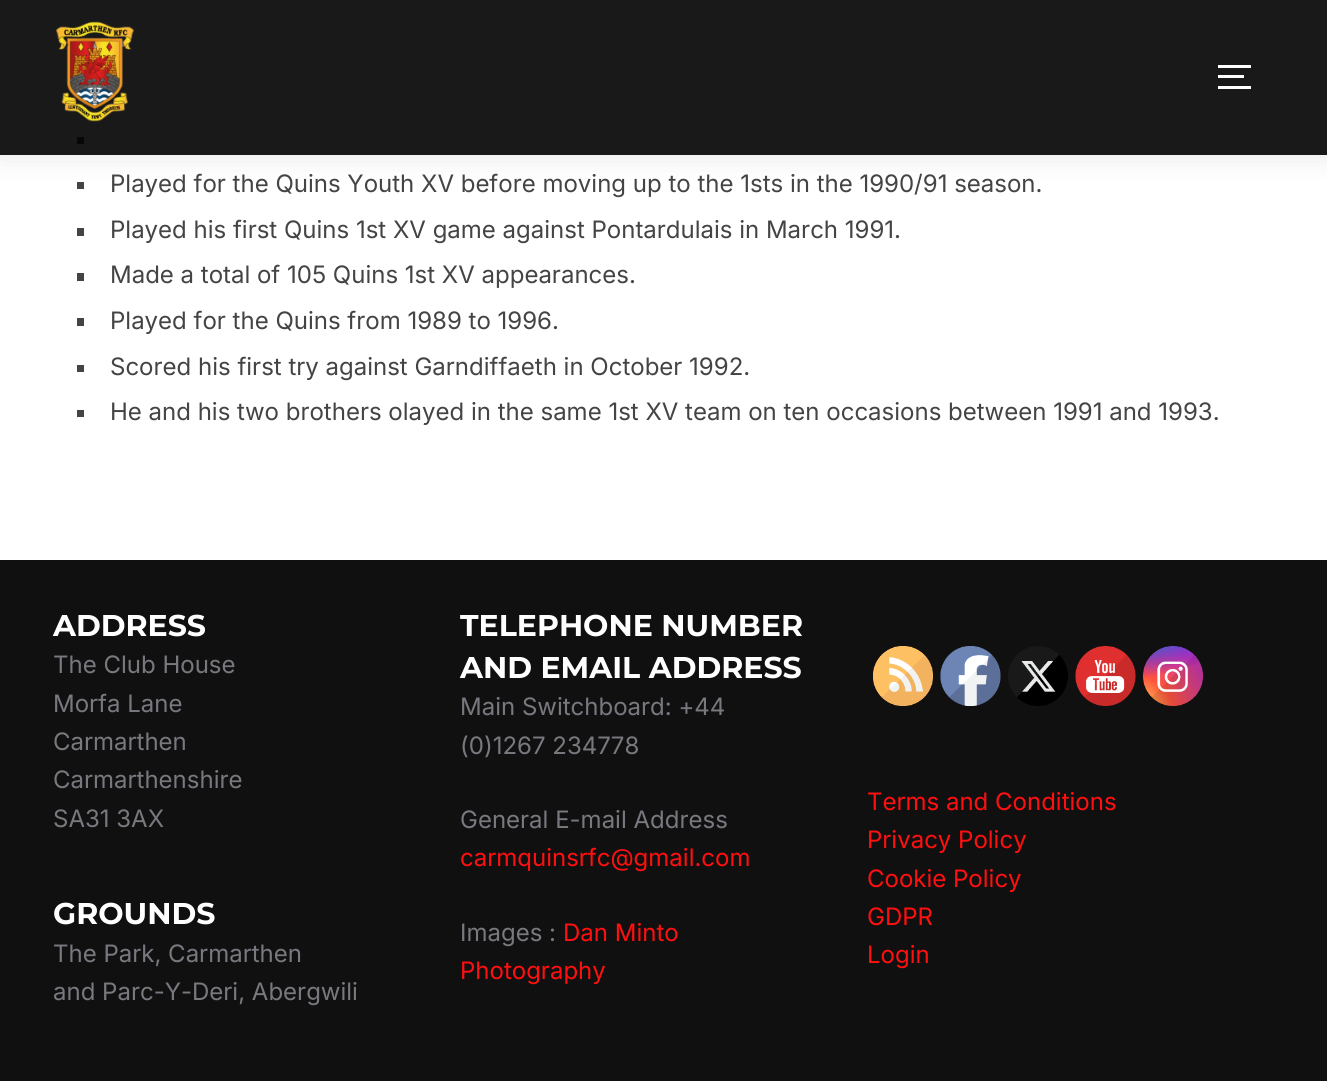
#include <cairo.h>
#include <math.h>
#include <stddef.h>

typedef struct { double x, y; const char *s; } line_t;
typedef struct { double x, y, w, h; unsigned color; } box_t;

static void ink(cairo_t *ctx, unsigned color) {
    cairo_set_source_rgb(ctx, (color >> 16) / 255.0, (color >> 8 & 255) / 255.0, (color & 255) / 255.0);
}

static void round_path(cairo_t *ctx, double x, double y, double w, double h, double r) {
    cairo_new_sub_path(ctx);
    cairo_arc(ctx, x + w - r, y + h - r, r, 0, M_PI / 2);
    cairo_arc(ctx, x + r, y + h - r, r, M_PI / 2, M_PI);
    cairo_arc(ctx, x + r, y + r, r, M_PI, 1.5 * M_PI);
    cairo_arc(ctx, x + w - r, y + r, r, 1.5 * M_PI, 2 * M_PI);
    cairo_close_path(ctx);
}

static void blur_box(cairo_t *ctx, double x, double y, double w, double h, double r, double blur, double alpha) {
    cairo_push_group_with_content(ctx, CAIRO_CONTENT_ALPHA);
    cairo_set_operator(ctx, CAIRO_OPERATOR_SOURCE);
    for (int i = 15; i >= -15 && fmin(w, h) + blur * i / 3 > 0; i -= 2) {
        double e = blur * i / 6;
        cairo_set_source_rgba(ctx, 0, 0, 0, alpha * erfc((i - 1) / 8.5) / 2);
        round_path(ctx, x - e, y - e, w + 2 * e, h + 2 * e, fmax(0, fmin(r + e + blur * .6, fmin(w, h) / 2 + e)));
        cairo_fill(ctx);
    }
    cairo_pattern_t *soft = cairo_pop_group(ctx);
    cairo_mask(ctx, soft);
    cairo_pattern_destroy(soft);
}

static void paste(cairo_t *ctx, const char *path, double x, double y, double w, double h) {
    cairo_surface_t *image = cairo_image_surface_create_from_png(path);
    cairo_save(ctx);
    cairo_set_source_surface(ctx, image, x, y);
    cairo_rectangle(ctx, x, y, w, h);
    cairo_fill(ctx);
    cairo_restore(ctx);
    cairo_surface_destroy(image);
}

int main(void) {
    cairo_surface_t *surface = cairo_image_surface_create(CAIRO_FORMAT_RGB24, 1327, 1081);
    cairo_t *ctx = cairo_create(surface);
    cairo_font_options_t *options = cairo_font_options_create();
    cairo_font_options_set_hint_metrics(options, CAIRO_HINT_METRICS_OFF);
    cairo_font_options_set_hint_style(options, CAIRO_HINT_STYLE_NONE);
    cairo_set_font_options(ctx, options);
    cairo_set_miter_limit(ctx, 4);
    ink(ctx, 0xFFFFFF);
    cairo_paint(ctx);
    ink(ctx, 0x444444);
    cairo_rectangle(ctx, 77, 137, 7, 7);
    cairo_fill(ctx);
    cairo_rectangle(ctx, 77, 182, 7, 7);
    cairo_fill(ctx);
    cairo_save(ctx);
    cairo_set_fill_rule(ctx, CAIRO_FILL_RULE_EVEN_ODD);
    cairo_new_path(ctx);
    cairo_move_to(ctx, 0, 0);
    cairo_line_to(ctx, 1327, 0);
    cairo_line_to(ctx, 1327, 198);
    cairo_line_to(ctx, 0, 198);
    cairo_close_path(ctx);
    cairo_move_to(ctx, 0, 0);
    cairo_line_to(ctx, 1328, 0);
    cairo_line_to(ctx, 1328, 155);
    cairo_line_to(ctx, 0, 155);
    cairo_close_path(ctx);
    cairo_clip(ctx);
    ink(ctx, 0x000000);
    blur_box(ctx, -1, -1, 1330, 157, 0, 13.5, 0.1);
    cairo_restore(ctx);
    cairo_set_source_rgba(ctx, 0, 0, 0, 0.9);
    cairo_rectangle(ctx, 0, 0, 1327, 155);
    cairo_fill(ctx);
    paste(ctx, "media/1.png", 55, 21, 80, 101);
    {
        static const box_t items[] = {
            {1218, 65, 33, 3, 0xFFFFFF},
            {1218, 75, 26, 3, 0xFFFFFF},
            {1218, 86, 33, 3, 0xFFFFFF},
        };
        for (size_t i = 0; i < sizeof items / sizeof *items; i++) {
            ink(ctx, items[i].color);
            cairo_rectangle(ctx, items[i].x, items[i].y, items[i].w, items[i].h);
            cairo_fill(ctx);
        }
    }
    cairo_select_font_face(ctx, "Inter", CAIRO_FONT_SLANT_NORMAL, CAIRO_FONT_WEIGHT_NORMAL);
    cairo_set_font_size(ctx, 24);
    ink(ctx, 0x444444);
    cairo_move_to(ctx, 110, 192);
    cairo_show_text(ctx, "Played for the Quins Youth XV before moving up to the 1sts in the 1990/91 season.");
    cairo_rectangle(ctx, 77, 228, 7, 8);
    cairo_fill(ctx);
    cairo_move_to(ctx, 110, 238);
    cairo_show_text(ctx, "Played his first Quins 1st XV game against Pontardulais in March 1991.");
    cairo_rectangle(ctx, 77, 273, 7, 8);
    cairo_fill(ctx);
    cairo_move_to(ctx, 110, 283);
    cairo_show_text(ctx, "Made a total of 105 Quins 1st XV appearances.");
    cairo_rectangle(ctx, 77, 318, 7, 8);
    cairo_fill(ctx);
    cairo_move_to(ctx, 110, 329);
    cairo_show_text(ctx, "Played for the Quins from 1989 to 1996.");
    cairo_rectangle(ctx, 77, 365, 7, 7);
    cairo_fill(ctx);
    cairo_move_to(ctx, 110, 375);
    cairo_show_text(ctx, "Scored his first try against Garndiffaeth in October 1992.");
    cairo_rectangle(ctx, 77, 410, 7, 7);
    cairo_fill(ctx);
    cairo_move_to(ctx, 110, 420);
    cairo_show_text(ctx, "He and his two brothers olayed in the same 1st XV team on ten occasions between 1991 and 1993.");
    ink(ctx, 0x101010);
    cairo_rectangle(ctx, 0, 560, 1327, 521);
    cairo_fill(ctx);
    cairo_select_font_face(ctx, "Montserrat", CAIRO_FONT_SLANT_NORMAL, CAIRO_FONT_WEIGHT_BOLD);
    cairo_set_font_size(ctx, 30);
    ink(ctx, 0xFFFFFF);
    cairo_move_to(ctx, 53, 636);
    cairo_show_text(ctx, "ADDRESS");
    cairo_select_font_face(ctx, "Inter", CAIRO_FONT_SLANT_NORMAL, CAIRO_FONT_WEIGHT_NORMAL);
    cairo_set_font_size(ctx, 24);
    ink(ctx, 0x78787F);
    {
        static const line_t items[] = {
            {53, 673, "The Club House"},
            {53, 712, "Morfa Lane"},
            {53, 750, "Carmarthen"},
            {53, 788, "Carmarthenshire"},
            {53, 827, "SA31 3AX"},
        };
        for (size_t i = 0; i < sizeof items / sizeof *items; i++) {
            cairo_move_to(ctx, items[i].x, items[i].y);
            cairo_show_text(ctx, items[i].s);
        }
    }
    cairo_select_font_face(ctx, "Montserrat", CAIRO_FONT_SLANT_NORMAL, CAIRO_FONT_WEIGHT_BOLD);
    cairo_set_font_size(ctx, 30);
    ink(ctx, 0xFFFFFF);
    cairo_move_to(ctx, 53, 924);
    cairo_show_text(ctx, "GROUNDS");
    cairo_select_font_face(ctx, "Inter", CAIRO_FONT_SLANT_NORMAL, CAIRO_FONT_WEIGHT_NORMAL);
    cairo_set_font_size(ctx, 24);
    ink(ctx, 0x78787F);
    cairo_move_to(ctx, 53, 962);
    cairo_show_text(ctx, "The Park, Carmarthen");
    cairo_move_to(ctx, 53, 1000);
    cairo_show_text(ctx, "and Parc-Y-Deri, Abergwili");
    cairo_select_font_face(ctx, "Montserrat", CAIRO_FONT_SLANT_NORMAL, CAIRO_FONT_WEIGHT_BOLD);
    cairo_set_font_size(ctx, 30);
    ink(ctx, 0xFFFFFF);
    cairo_move_to(ctx, 460, 636);
    cairo_show_text(ctx, "TELEPHONE NUMBER");
    cairo_move_to(ctx, 460, 678);
    cairo_show_text(ctx, "AND EMAIL ADDRESS");
    cairo_select_font_face(ctx, "Inter", CAIRO_FONT_SLANT_NORMAL, CAIRO_FONT_WEIGHT_NORMAL);
    cairo_set_font_size(ctx, 24);
    ink(ctx, 0x78787F);
    {
        static const line_t items[] = {
            {460, 715, "Main Switchboard: +44"},
            {460, 754, "(0)1267 234778"},
            {460, 828, "General E-mail Address"},
        };
        for (size_t i = 0; i < sizeof items / sizeof *items; i++) {
            cairo_move_to(ctx, items[i].x, items[i].y);
            cairo_show_text(ctx, items[i].s);
        }
    }
    ink(ctx, 0xFF0F0F);
    cairo_move_to(ctx, 460, 866);
    cairo_show_text(ctx, "carmquinsrfc@gmail.com");
    ink(ctx, 0x78787F);
    cairo_move_to(ctx, 460, 941);
    cairo_show_text(ctx, "Images :");
    ink(ctx, 0xFF0F0F);
    cairo_move_to(ctx, 563, 941);
    cairo_show_text(ctx, "Dan Minto");
    cairo_move_to(ctx, 460, 979);
    cairo_show_text(ctx, "Photography");
    paste(ctx, "media/2.png", 873, 646, 60, 60);
    paste(ctx, "media/3.png", 940, 646, 61, 60);
    paste(ctx, "media/4.png", 1008, 646, 60, 60);
    paste(ctx, "media/5.png", 1075, 646, 61, 60);
    paste(ctx, "media/6.png", 1143, 646, 60, 60);
    {
        static const line_t items[] = {
            {867, 810, "Terms and Conditions"},
            {867, 848, "Privacy Policy"},
            {867, 887, "Cookie Policy"},
            {867, 925, "GDPR"},
            {867, 963, "Login"},
        };
        for (size_t i = 0; i < sizeof items / sizeof *items; i++) {
            cairo_move_to(ctx, items[i].x, items[i].y);
            cairo_show_text(ctx, items[i].s);
        }
    }
    cairo_surface_write_to_png(surface, "image.png");
    cairo_font_options_destroy(options);
    cairo_destroy(ctx);
    cairo_surface_destroy(surface);
    return 0;
}
